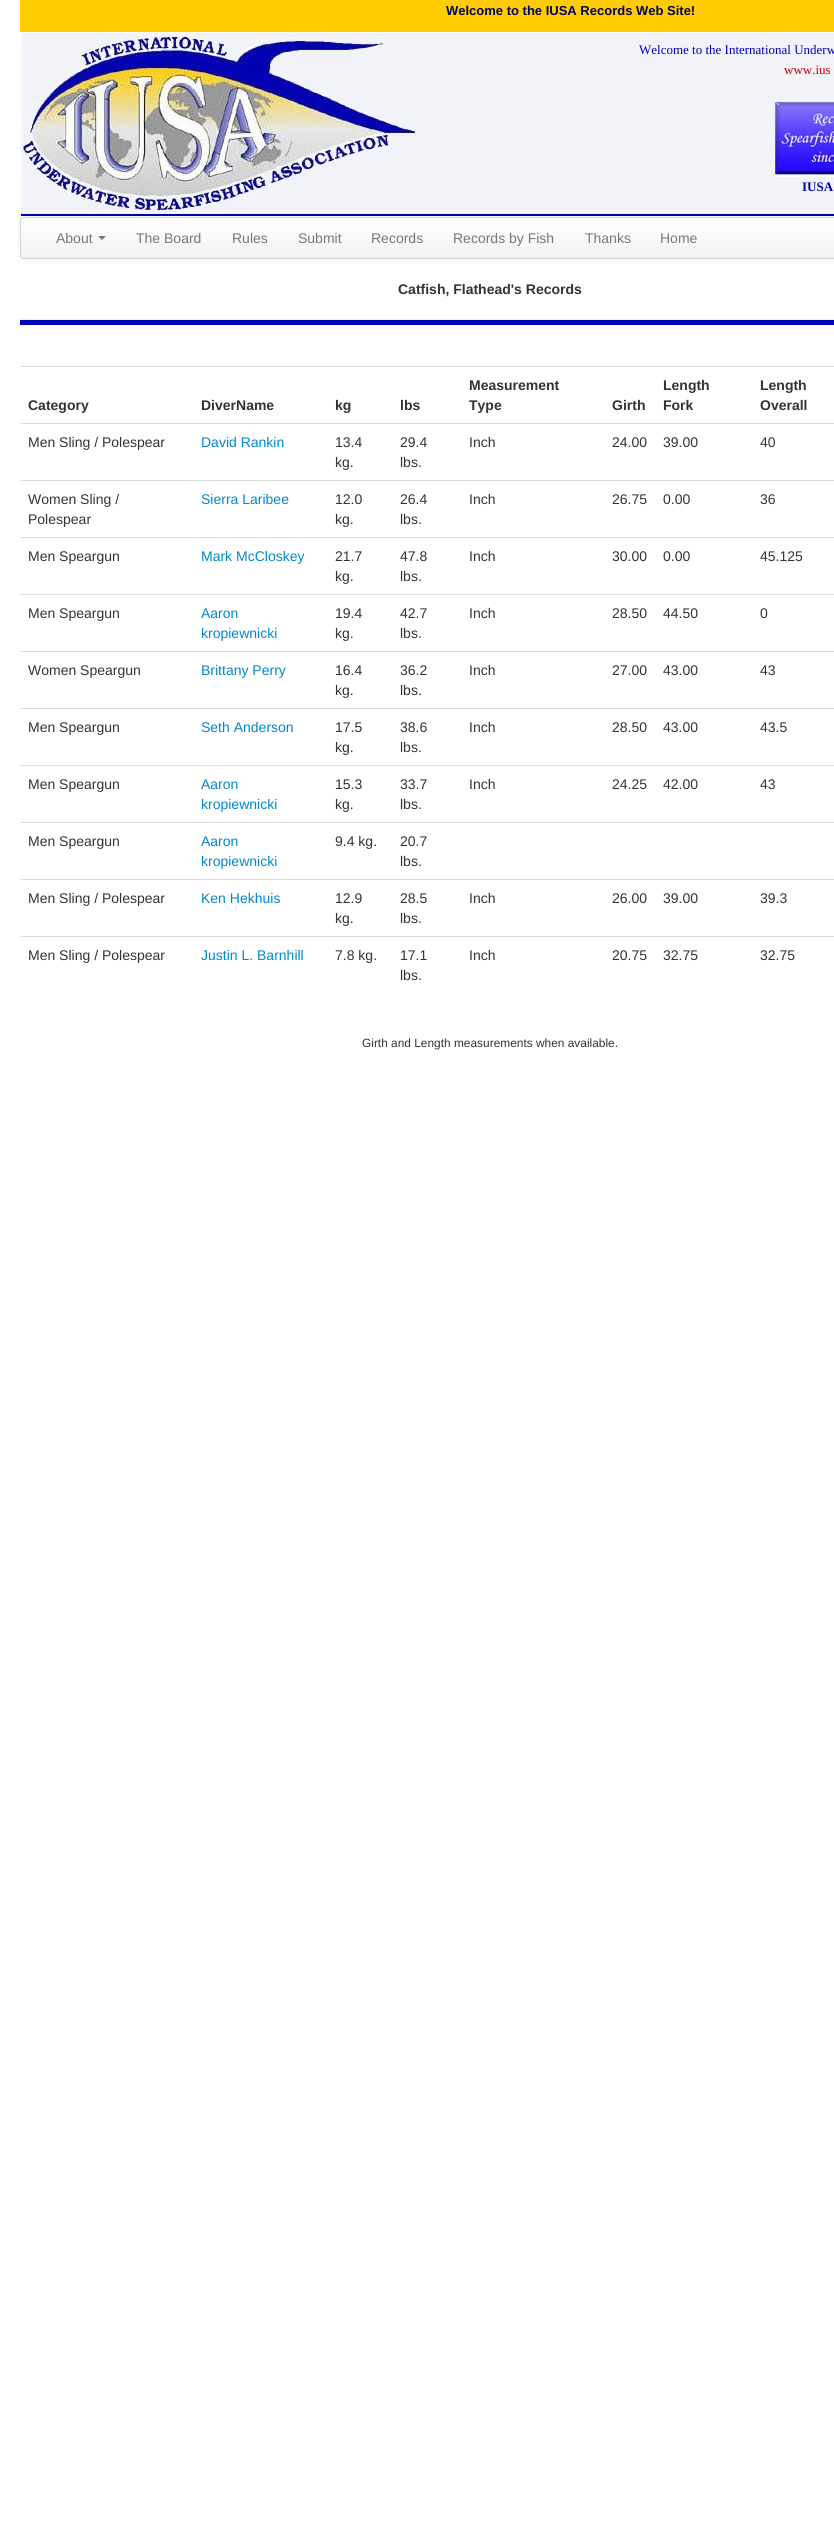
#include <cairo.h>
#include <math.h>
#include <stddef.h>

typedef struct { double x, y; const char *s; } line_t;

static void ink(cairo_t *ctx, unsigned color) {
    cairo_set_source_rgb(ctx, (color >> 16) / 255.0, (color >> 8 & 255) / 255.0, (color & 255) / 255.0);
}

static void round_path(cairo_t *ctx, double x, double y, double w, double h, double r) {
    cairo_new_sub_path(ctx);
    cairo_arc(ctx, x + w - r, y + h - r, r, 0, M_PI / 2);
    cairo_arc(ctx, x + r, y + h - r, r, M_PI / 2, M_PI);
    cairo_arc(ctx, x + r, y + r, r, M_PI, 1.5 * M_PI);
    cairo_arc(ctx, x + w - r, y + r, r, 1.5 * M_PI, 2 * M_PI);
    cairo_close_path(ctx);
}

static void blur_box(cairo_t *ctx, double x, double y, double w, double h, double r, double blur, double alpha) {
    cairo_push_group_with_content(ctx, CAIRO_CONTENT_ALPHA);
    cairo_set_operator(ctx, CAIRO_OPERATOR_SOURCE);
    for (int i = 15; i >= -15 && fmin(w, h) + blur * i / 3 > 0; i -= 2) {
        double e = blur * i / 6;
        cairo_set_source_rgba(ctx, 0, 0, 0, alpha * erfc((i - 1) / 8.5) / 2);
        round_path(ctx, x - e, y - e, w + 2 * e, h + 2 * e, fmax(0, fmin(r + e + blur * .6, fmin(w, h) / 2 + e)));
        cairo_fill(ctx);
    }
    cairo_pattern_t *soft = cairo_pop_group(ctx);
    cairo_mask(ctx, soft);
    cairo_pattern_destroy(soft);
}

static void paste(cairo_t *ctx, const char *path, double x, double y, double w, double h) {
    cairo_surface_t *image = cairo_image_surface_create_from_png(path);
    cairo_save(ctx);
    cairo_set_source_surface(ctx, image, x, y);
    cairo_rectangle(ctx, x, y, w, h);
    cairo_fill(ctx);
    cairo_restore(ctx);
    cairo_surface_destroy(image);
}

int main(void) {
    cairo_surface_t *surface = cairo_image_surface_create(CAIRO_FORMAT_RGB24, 834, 2535);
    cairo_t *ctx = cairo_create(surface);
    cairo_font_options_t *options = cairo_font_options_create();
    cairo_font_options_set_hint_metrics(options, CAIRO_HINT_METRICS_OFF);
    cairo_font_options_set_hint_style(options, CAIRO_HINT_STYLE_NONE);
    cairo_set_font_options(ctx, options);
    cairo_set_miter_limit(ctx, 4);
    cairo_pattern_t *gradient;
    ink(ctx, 0xFFFFFF);
    cairo_paint(ctx);
    ink(ctx, 0xFFCC00);
    cairo_rectangle(ctx, 20, 0, 814, 32);
    cairo_fill(ctx);
    cairo_select_font_face(ctx, "Liberation Sans", CAIRO_FONT_SLANT_NORMAL, CAIRO_FONT_WEIGHT_BOLD);
    cairo_set_font_size(ctx, 13);
    ink(ctx, 0x000066);
    cairo_move_to(ctx, 446, 15);
    cairo_show_text(ctx, "Welcome to the IUSA Records Web Site!");
    ink(ctx, 0xF2F3F8);
    cairo_rectangle(ctx, 21, 33, 813, 181);
    cairo_fill(ctx);
    ink(ctx, 0x0000B9);
    cairo_rectangle(ctx, 21, 214, 813, 2);
    cairo_fill(ctx);
    ink(ctx, 0x000000);
    blur_box(ctx, 20, 218, 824, 42, 4, 2, 0.07);
    paste(ctx, "media/1.png", 22, 34, 395, 179);
    cairo_select_font_face(ctx, "Liberation Serif", CAIRO_FONT_SLANT_NORMAL, CAIRO_FONT_WEIGHT_NORMAL);
    ink(ctx, 0x0000B9);
    cairo_move_to(ctx, 639, 54);
    cairo_show_text(ctx, "Welcome to the International Underw");
    ink(ctx, 0xC40000);
    cairo_move_to(ctx, 784, 74);
    cairo_show_text(ctx, "www.ius");
    paste(ctx, "media/2.png", 775, 100, 59, 77);
    cairo_select_font_face(ctx, "Liberation Serif", CAIRO_FONT_SLANT_NORMAL, CAIRO_FONT_WEIGHT_BOLD);
    ink(ctx, 0x0000B9);
    cairo_move_to(ctx, 802, 191);
    cairo_show_text(ctx, "IUSA");
    cairo_save(ctx);
    round_path(ctx, 20, 217, 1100, 42, 4);
    cairo_clip(ctx);
    gradient = cairo_pattern_create_linear(570, 218, 570, 258);
    cairo_pattern_add_color_stop_rgba(gradient, 0, 1, 1, 1, 1);
    cairo_pattern_add_color_stop_rgba(gradient, 1, 0.949, 0.949, 0.949, 1);
    cairo_set_source(ctx, gradient);
    cairo_pattern_destroy(gradient);
    cairo_rectangle(ctx, 20, 218, 814, 40);
    cairo_fill(ctx);
    cairo_restore(ctx);
    round_path(ctx, 20.5, 217.5, 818, 41, 3.5);
    ink(ctx, 0xD4D4D4);
    cairo_set_line_width(ctx, 1);
    cairo_stroke(ctx);
    cairo_select_font_face(ctx, "Liberation Sans", CAIRO_FONT_SLANT_NORMAL, CAIRO_FONT_WEIGHT_NORMAL);
    cairo_set_font_size(ctx, 14);
    ink(ctx, 0x777777);
    cairo_move_to(ctx, 56, 243);
    cairo_show_text(ctx, "About");
    cairo_new_path(ctx);
    cairo_move_to(ctx, 98, 236);
    cairo_line_to(ctx, 106, 236);
    cairo_line_to(ctx, 102, 240);
    cairo_close_path(ctx);
    cairo_fill(ctx);
    {
        static const line_t items[] = {
            {136, 243, "The Board"},
            {232, 243, "Rules"},
            {298, 243, "Submit"},
            {371, 243, "Records"},
            {453, 243, "Records by Fish"},
            {585, 243, "Thanks"},
            {660, 243, "Home"},
        };
        for (size_t i = 0; i < sizeof items / sizeof *items; i++) {
            cairo_move_to(ctx, items[i].x, items[i].y);
            cairo_show_text(ctx, items[i].s);
        }
    }
    cairo_select_font_face(ctx, "Liberation Sans", CAIRO_FONT_SLANT_NORMAL, CAIRO_FONT_WEIGHT_BOLD);
    ink(ctx, 0x333333);
    cairo_move_to(ctx, 398, 294);
    cairo_show_text(ctx, "Catfish, Flathead's Records");
    ink(ctx, 0x0000B9);
    cairo_rectangle(ctx, 20, 320, 814, 5);
    cairo_fill(ctx);
    ink(ctx, 0xEEEEEE);
    cairo_rectangle(ctx, 20, 319, 814, 1);
    cairo_fill(ctx);
    ink(ctx, 0x333333);
    {
        static const line_t items[] = {
            {28, 410, "Category"},
            {201, 410, "DiverName"},
            {335, 410, "kg"},
            {400, 410, "lbs"},
            {469, 390, "Measurement"},
            {469, 410, "Type"},
            {612, 410, "Girth"},
            {663, 390, "Length"},
            {663, 410, "Fork"},
        };
        for (size_t i = 0; i < sizeof items / sizeof *items; i++) {
            cairo_move_to(ctx, items[i].x, items[i].y);
            cairo_show_text(ctx, items[i].s);
        }
    }
    ink(ctx, 0xDDDDDD);
    cairo_rectangle(ctx, 20, 366, 814, 1);
    cairo_fill(ctx);
    ink(ctx, 0x333333);
    cairo_move_to(ctx, 760, 390);
    cairo_show_text(ctx, "Length");
    cairo_move_to(ctx, 760, 410);
    cairo_show_text(ctx, "Overall");
    cairo_select_font_face(ctx, "Liberation Sans", CAIRO_FONT_SLANT_NORMAL, CAIRO_FONT_WEIGHT_NORMAL);
    cairo_move_to(ctx, 28, 447);
    cairo_show_text(ctx, "Men Sling / Polespear");
    ink(ctx, 0x0088CC);
    cairo_move_to(ctx, 201, 447);
    cairo_show_text(ctx, "David Rankin");
    ink(ctx, 0x333333);
    {
        static const line_t items[] = {
            {335, 447, "13.4"},
            {335, 467, "kg."},
            {400, 447, "29.4"},
            {400, 467, "lbs."},
            {469, 447, "Inch"},
            {612, 447, "24.00"},
            {663, 447, "39.00"},
        };
        for (size_t i = 0; i < sizeof items / sizeof *items; i++) {
            cairo_move_to(ctx, items[i].x, items[i].y);
            cairo_show_text(ctx, items[i].s);
        }
    }
    ink(ctx, 0xDDDDDD);
    cairo_rectangle(ctx, 20, 423, 814, 1);
    cairo_fill(ctx);
    ink(ctx, 0x333333);
    {
        static const line_t items[] = {
            {760, 447, "40"},
            {28, 504, "Women Sling /"},
            {28, 524, "Polespear"},
        };
        for (size_t i = 0; i < sizeof items / sizeof *items; i++) {
            cairo_move_to(ctx, items[i].x, items[i].y);
            cairo_show_text(ctx, items[i].s);
        }
    }
    ink(ctx, 0x0088CC);
    cairo_move_to(ctx, 201, 504);
    cairo_show_text(ctx, "Sierra Laribee");
    ink(ctx, 0x333333);
    {
        static const line_t items[] = {
            {335, 504, "12.0"},
            {335, 524, "kg."},
            {400, 504, "26.4"},
            {400, 524, "lbs."},
            {469, 504, "Inch"},
            {612, 504, "26.75"},
            {663, 504, "0.00"},
        };
        for (size_t i = 0; i < sizeof items / sizeof *items; i++) {
            cairo_move_to(ctx, items[i].x, items[i].y);
            cairo_show_text(ctx, items[i].s);
        }
    }
    ink(ctx, 0xDDDDDD);
    cairo_rectangle(ctx, 20, 480, 814, 1);
    cairo_fill(ctx);
    ink(ctx, 0x333333);
    cairo_move_to(ctx, 760, 504);
    cairo_show_text(ctx, "36");
    cairo_move_to(ctx, 28, 561);
    cairo_show_text(ctx, "Men Speargun");
    ink(ctx, 0x0088CC);
    cairo_move_to(ctx, 201, 561);
    cairo_show_text(ctx, "Mark McCloskey");
    ink(ctx, 0x333333);
    {
        static const line_t items[] = {
            {335, 561, "21.7"},
            {335, 581, "kg."},
            {400, 561, "47.8"},
            {400, 581, "lbs."},
            {469, 561, "Inch"},
            {612, 561, "30.00"},
            {663, 561, "0.00"},
        };
        for (size_t i = 0; i < sizeof items / sizeof *items; i++) {
            cairo_move_to(ctx, items[i].x, items[i].y);
            cairo_show_text(ctx, items[i].s);
        }
    }
    ink(ctx, 0xDDDDDD);
    cairo_rectangle(ctx, 20, 537, 814, 1);
    cairo_fill(ctx);
    ink(ctx, 0x333333);
    cairo_move_to(ctx, 760, 561);
    cairo_show_text(ctx, "45.125");
    cairo_move_to(ctx, 28, 618);
    cairo_show_text(ctx, "Men Speargun");
    ink(ctx, 0x0088CC);
    cairo_move_to(ctx, 201, 618);
    cairo_show_text(ctx, "Aaron");
    cairo_move_to(ctx, 201, 638);
    cairo_show_text(ctx, "kropiewnicki");
    ink(ctx, 0x333333);
    {
        static const line_t items[] = {
            {335, 618, "19.4"},
            {335, 638, "kg."},
            {400, 618, "42.7"},
            {400, 638, "lbs."},
            {469, 618, "Inch"},
            {612, 618, "28.50"},
            {663, 618, "44.50"},
        };
        for (size_t i = 0; i < sizeof items / sizeof *items; i++) {
            cairo_move_to(ctx, items[i].x, items[i].y);
            cairo_show_text(ctx, items[i].s);
        }
    }
    ink(ctx, 0xDDDDDD);
    cairo_rectangle(ctx, 20, 594, 814, 1);
    cairo_fill(ctx);
    ink(ctx, 0x333333);
    cairo_move_to(ctx, 760, 618);
    cairo_show_text(ctx, "0");
    cairo_move_to(ctx, 28, 675);
    cairo_show_text(ctx, "Women Speargun");
    ink(ctx, 0x0088CC);
    cairo_move_to(ctx, 201, 675);
    cairo_show_text(ctx, "Brittany Perry");
    ink(ctx, 0x333333);
    {
        static const line_t items[] = {
            {335, 675, "16.4"},
            {335, 695, "kg."},
            {400, 675, "36.2"},
            {400, 695, "lbs."},
            {469, 675, "Inch"},
            {612, 675, "27.00"},
            {663, 675, "43.00"},
        };
        for (size_t i = 0; i < sizeof items / sizeof *items; i++) {
            cairo_move_to(ctx, items[i].x, items[i].y);
            cairo_show_text(ctx, items[i].s);
        }
    }
    ink(ctx, 0xDDDDDD);
    cairo_rectangle(ctx, 20, 651, 814, 1);
    cairo_fill(ctx);
    ink(ctx, 0x333333);
    cairo_move_to(ctx, 760, 675);
    cairo_show_text(ctx, "43");
    cairo_move_to(ctx, 28, 732);
    cairo_show_text(ctx, "Men Speargun");
    ink(ctx, 0x0088CC);
    cairo_move_to(ctx, 201, 732);
    cairo_show_text(ctx, "Seth Anderson");
    ink(ctx, 0x333333);
    {
        static const line_t items[] = {
            {335, 732, "17.5"},
            {335, 752, "kg."},
            {400, 732, "38.6"},
            {400, 752, "lbs."},
            {469, 732, "Inch"},
            {612, 732, "28.50"},
            {663, 732, "43.00"},
        };
        for (size_t i = 0; i < sizeof items / sizeof *items; i++) {
            cairo_move_to(ctx, items[i].x, items[i].y);
            cairo_show_text(ctx, items[i].s);
        }
    }
    ink(ctx, 0xDDDDDD);
    cairo_rectangle(ctx, 20, 708, 814, 1);
    cairo_fill(ctx);
    ink(ctx, 0x333333);
    cairo_move_to(ctx, 760, 732);
    cairo_show_text(ctx, "43.5");
    cairo_move_to(ctx, 28, 789);
    cairo_show_text(ctx, "Men Speargun");
    ink(ctx, 0x0088CC);
    cairo_move_to(ctx, 201, 789);
    cairo_show_text(ctx, "Aaron");
    cairo_move_to(ctx, 201, 809);
    cairo_show_text(ctx, "kropiewnicki");
    ink(ctx, 0x333333);
    {
        static const line_t items[] = {
            {335, 789, "15.3"},
            {335, 809, "kg."},
            {400, 789, "33.7"},
            {400, 809, "lbs."},
            {469, 789, "Inch"},
            {612, 789, "24.25"},
            {663, 789, "42.00"},
        };
        for (size_t i = 0; i < sizeof items / sizeof *items; i++) {
            cairo_move_to(ctx, items[i].x, items[i].y);
            cairo_show_text(ctx, items[i].s);
        }
    }
    ink(ctx, 0xDDDDDD);
    cairo_rectangle(ctx, 20, 765, 814, 1);
    cairo_fill(ctx);
    ink(ctx, 0x333333);
    cairo_move_to(ctx, 760, 789);
    cairo_show_text(ctx, "43");
    ink(ctx, 0xDDDDDD);
    cairo_rectangle(ctx, 20, 822, 814, 1);
    cairo_fill(ctx);
    ink(ctx, 0x333333);
    cairo_move_to(ctx, 28, 846);
    cairo_show_text(ctx, "Men Speargun");
    ink(ctx, 0x0088CC);
    cairo_move_to(ctx, 201, 846);
    cairo_show_text(ctx, "Aaron");
    cairo_move_to(ctx, 201, 866);
    cairo_show_text(ctx, "kropiewnicki");
    ink(ctx, 0x333333);
    {
        static const line_t items[] = {
            {335, 846, "9.4 kg."},
            {400, 846, "20.7"},
            {400, 866, "lbs."},
            {28, 903, "Men Sling / Polespear"},
        };
        for (size_t i = 0; i < sizeof items / sizeof *items; i++) {
            cairo_move_to(ctx, items[i].x, items[i].y);
            cairo_show_text(ctx, items[i].s);
        }
    }
    ink(ctx, 0x0088CC);
    cairo_move_to(ctx, 201, 903);
    cairo_show_text(ctx, "Ken Hekhuis");
    ink(ctx, 0x333333);
    {
        static const line_t items[] = {
            {335, 903, "12.9"},
            {335, 923, "kg."},
            {400, 903, "28.5"},
            {400, 923, "lbs."},
            {469, 903, "Inch"},
            {612, 903, "26.00"},
            {663, 903, "39.00"},
        };
        for (size_t i = 0; i < sizeof items / sizeof *items; i++) {
            cairo_move_to(ctx, items[i].x, items[i].y);
            cairo_show_text(ctx, items[i].s);
        }
    }
    ink(ctx, 0xDDDDDD);
    cairo_rectangle(ctx, 20, 879, 814, 1);
    cairo_fill(ctx);
    ink(ctx, 0x333333);
    cairo_move_to(ctx, 760, 903);
    cairo_show_text(ctx, "39.3");
    cairo_move_to(ctx, 28, 960);
    cairo_show_text(ctx, "Men Sling / Polespear");
    ink(ctx, 0x0088CC);
    cairo_move_to(ctx, 201, 960);
    cairo_show_text(ctx, "Justin L. Barnhill");
    ink(ctx, 0x333333);
    {
        static const line_t items[] = {
            {335, 960, "7.8 kg."},
            {400, 960, "17.1"},
            {400, 980, "lbs."},
            {469, 960, "Inch"},
            {612, 960, "20.75"},
            {663, 960, "32.75"},
        };
        for (size_t i = 0; i < sizeof items / sizeof *items; i++) {
            cairo_move_to(ctx, items[i].x, items[i].y);
            cairo_show_text(ctx, items[i].s);
        }
    }
    ink(ctx, 0xDDDDDD);
    cairo_rectangle(ctx, 20, 936, 814, 1);
    cairo_fill(ctx);
    ink(ctx, 0x333333);
    cairo_move_to(ctx, 760, 960);
    cairo_show_text(ctx, "32.75");
    cairo_set_font_size(ctx, 11.9);
    cairo_move_to(ctx, 362, 1047);
    cairo_show_text(ctx, "Girth and Length measurements when available.");
    cairo_surface_write_to_png(surface, "image.png");
    cairo_font_options_destroy(options);
    cairo_destroy(ctx);
    cairo_surface_destroy(surface);
    return 0;
}
